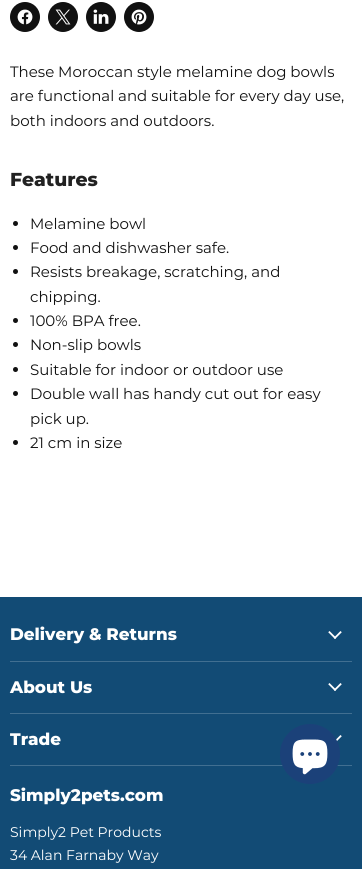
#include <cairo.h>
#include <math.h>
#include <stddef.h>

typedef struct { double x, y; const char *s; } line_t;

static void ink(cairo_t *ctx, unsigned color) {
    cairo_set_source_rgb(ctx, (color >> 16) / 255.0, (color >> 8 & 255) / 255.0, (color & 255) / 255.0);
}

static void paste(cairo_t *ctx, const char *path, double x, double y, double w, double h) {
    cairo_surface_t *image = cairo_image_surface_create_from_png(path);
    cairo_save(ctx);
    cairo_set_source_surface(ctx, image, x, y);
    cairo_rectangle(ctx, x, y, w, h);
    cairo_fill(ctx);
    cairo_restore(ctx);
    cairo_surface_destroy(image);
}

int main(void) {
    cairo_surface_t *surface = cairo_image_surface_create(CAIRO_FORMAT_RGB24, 362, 869);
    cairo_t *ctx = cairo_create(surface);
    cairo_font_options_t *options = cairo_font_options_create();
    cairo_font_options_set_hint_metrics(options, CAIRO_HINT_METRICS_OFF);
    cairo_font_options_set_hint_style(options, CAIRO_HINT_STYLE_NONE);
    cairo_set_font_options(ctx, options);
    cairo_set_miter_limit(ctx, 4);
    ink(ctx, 0xFFFFFF);
    cairo_paint(ctx);
    ink(ctx, 0x111111);
    cairo_arc(ctx, 25, 17, 15, 0, 2 * M_PI);
    cairo_fill(ctx);
    paste(ctx, "media/1.png", 17, 9, 16, 16);
    cairo_arc(ctx, 63, 17, 15, 0, 2 * M_PI);
    cairo_fill(ctx);
    paste(ctx, "media/2.png", 55, 9, 16, 16);
    cairo_arc(ctx, 101, 17, 15, 0, 2 * M_PI);
    cairo_fill(ctx);
    paste(ctx, "media/3.png", 93, 9, 16, 15);
    cairo_arc(ctx, 139, 17, 15, 0, 2 * M_PI);
    cairo_fill(ctx);
    paste(ctx, "media/4.png", 131, 9, 16, 16);
    cairo_select_font_face(ctx, "Montserrat", CAIRO_FONT_SLANT_NORMAL, CAIRO_FONT_WEIGHT_NORMAL);
    cairo_set_font_size(ctx, 15);
    {
        static const line_t items[] = {
            {10, 77, "These Moroccan style melamine dog bowls"},
            {10, 101, "are functional and suitable for every day use,"},
            {10, 126, "both indoors and outdoors."},
        };
        for (size_t i = 0; i < sizeof items / sizeof *items; i++) {
            cairo_move_to(ctx, items[i].x, items[i].y);
            cairo_show_text(ctx, items[i].s);
        }
    }
    cairo_select_font_face(ctx, "Montserrat ExtraBold", CAIRO_FONT_SLANT_NORMAL, CAIRO_FONT_WEIGHT_NORMAL);
    cairo_set_font_size(ctx, 18.75);
    ink(ctx, 0x212121);
    cairo_move_to(ctx, 10, 186);
    cairo_show_text(ctx, "Features");
    ink(ctx, 0x111111);
    cairo_new_path(ctx);
    cairo_arc(ctx, 15.5, 223.5, 2.5, 0, 2 * M_PI);
    cairo_fill(ctx);
    cairo_select_font_face(ctx, "Montserrat", CAIRO_FONT_SLANT_NORMAL, CAIRO_FONT_WEIGHT_NORMAL);
    cairo_set_font_size(ctx, 15);
    cairo_move_to(ctx, 30, 229);
    cairo_show_text(ctx, "Melamine bowl");
    cairo_new_path(ctx);
    cairo_arc(ctx, 15.5, 247.5, 2.5, 0, 2 * M_PI);
    cairo_fill(ctx);
    cairo_move_to(ctx, 30, 253);
    cairo_show_text(ctx, "Food and dishwasher safe.");
    cairo_new_path(ctx);
    cairo_arc(ctx, 15.5, 271.5, 2.5, 0, 2 * M_PI);
    cairo_fill(ctx);
    cairo_move_to(ctx, 30, 277);
    cairo_show_text(ctx, "Resists breakage, scratching, and");
    cairo_move_to(ctx, 30, 302);
    cairo_show_text(ctx, "chipping.");
    cairo_new_path(ctx);
    cairo_arc(ctx, 15.5, 320.5, 2.5, 0, 2 * M_PI);
    cairo_fill(ctx);
    cairo_move_to(ctx, 30, 326);
    cairo_show_text(ctx, "100% BPA free.");
    cairo_new_path(ctx);
    cairo_arc(ctx, 15.5, 344.5, 2.5, 0, 2 * M_PI);
    cairo_fill(ctx);
    cairo_move_to(ctx, 30, 350);
    cairo_show_text(ctx, "Non-slip bowls");
    cairo_new_path(ctx);
    cairo_arc(ctx, 15.5, 369.5, 2.5, 0, 2 * M_PI);
    cairo_fill(ctx);
    cairo_move_to(ctx, 30, 375);
    cairo_show_text(ctx, "Suitable for indoor or outdoor use");
    cairo_new_path(ctx);
    cairo_arc(ctx, 15.5, 393.5, 2.5, 0, 2 * M_PI);
    cairo_fill(ctx);
    cairo_move_to(ctx, 30, 399);
    cairo_show_text(ctx, "Double wall has handy cut out for easy");
    cairo_move_to(ctx, 30, 424);
    cairo_show_text(ctx, "pick up.");
    cairo_new_path(ctx);
    cairo_arc(ctx, 15.5, 442.5, 2.5, 0, 2 * M_PI);
    cairo_fill(ctx);
    cairo_move_to(ctx, 30, 448);
    cairo_show_text(ctx, "21 cm in size");
    ink(ctx, 0x124B75);
    cairo_rectangle(ctx, 0, 597, 362, 272);
    cairo_fill(ctx);
    ink(ctx, 0x416F91);
    cairo_rectangle(ctx, 10, 661, 342, 1);
    cairo_fill(ctx);
    cairo_select_font_face(ctx, "Montserrat ExtraBold", CAIRO_FONT_SLANT_NORMAL, CAIRO_FONT_WEIGHT_NORMAL);
    cairo_set_font_size(ctx, 16.75);
    ink(ctx, 0xFFFFFF);
    cairo_move_to(ctx, 10, 640);
    cairo_show_text(ctx, "Delivery & Returns");
    paste(ctx, "media/5.png", 328, 631, 14, 8);
    ink(ctx, 0x416F91);
    cairo_rectangle(ctx, 10, 713, 342, 1);
    cairo_fill(ctx);
    ink(ctx, 0xFFFFFF);
    cairo_move_to(ctx, 10, 693);
    cairo_show_text(ctx, "About Us");
    paste(ctx, "media/5.png", 328, 683, 14, 8);
    ink(ctx, 0x416F91);
    cairo_rectangle(ctx, 10, 765, 342, 1);
    cairo_fill(ctx);
    ink(ctx, 0xFFFFFF);
    cairo_move_to(ctx, 10, 745);
    cairo_show_text(ctx, "Trade");
    paste(ctx, "media/6.png", 336, 735, 6, 6);
    cairo_move_to(ctx, 10, 801);
    cairo_show_text(ctx, "Simply2pets.com");
    cairo_select_font_face(ctx, "Montserrat", CAIRO_FONT_SLANT_NORMAL, CAIRO_FONT_WEIGHT_NORMAL);
    cairo_set_font_size(ctx, 14);
    cairo_move_to(ctx, 10, 837);
    cairo_show_text(ctx, "Simply2 Pet Products");
    cairo_move_to(ctx, 10, 860);
    cairo_show_text(ctx, "34 Alan Farnaby Way");
    ink(ctx, 0x1B4179);
    cairo_new_path(ctx);
    cairo_arc(ctx, 310, 754, 30, 0, 2 * M_PI);
    cairo_fill(ctx);
    paste(ctx, "media/7.png", 292, 739, 36, 36);
    cairo_surface_write_to_png(surface, "image.png");
    cairo_font_options_destroy(options);
    cairo_destroy(ctx);
    cairo_surface_destroy(surface);
    return 0;
}
